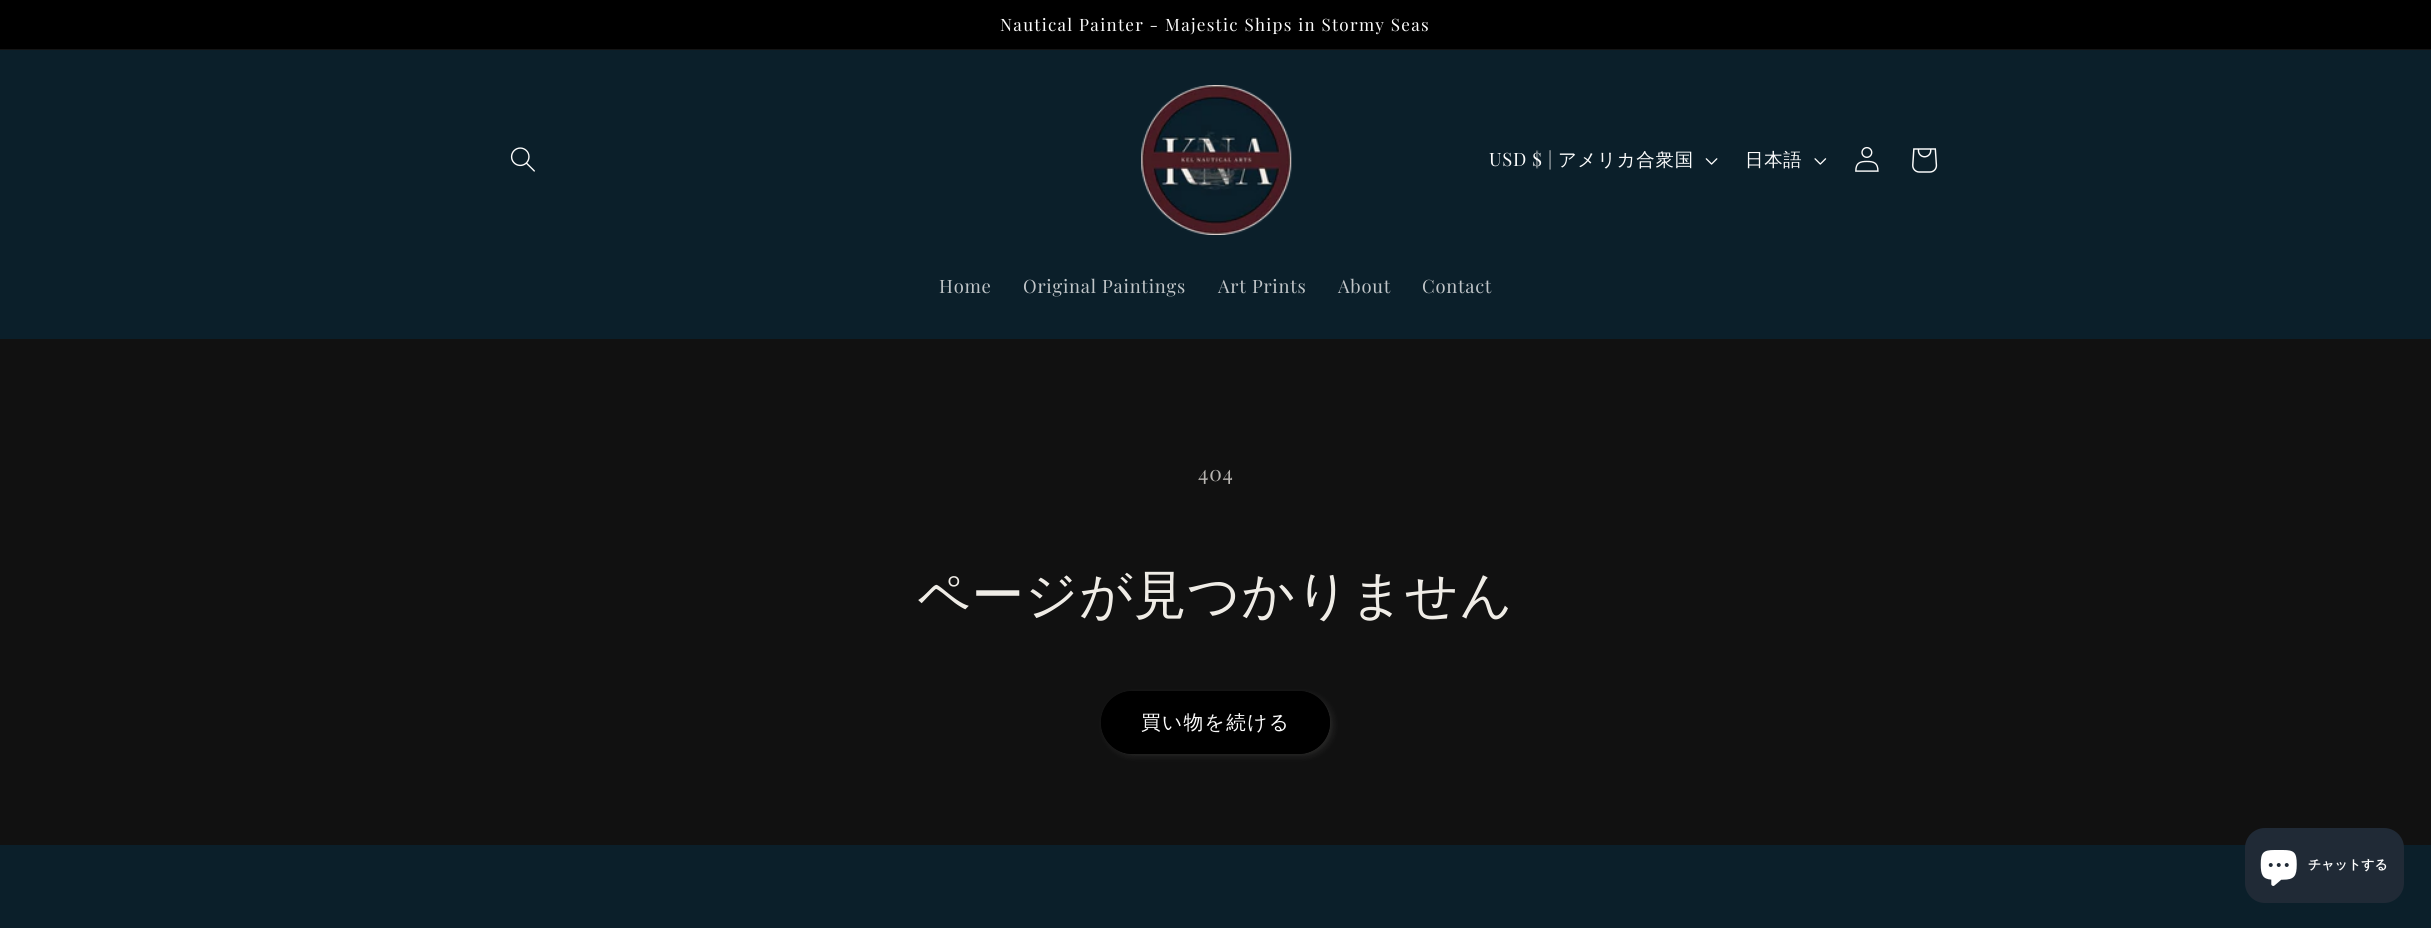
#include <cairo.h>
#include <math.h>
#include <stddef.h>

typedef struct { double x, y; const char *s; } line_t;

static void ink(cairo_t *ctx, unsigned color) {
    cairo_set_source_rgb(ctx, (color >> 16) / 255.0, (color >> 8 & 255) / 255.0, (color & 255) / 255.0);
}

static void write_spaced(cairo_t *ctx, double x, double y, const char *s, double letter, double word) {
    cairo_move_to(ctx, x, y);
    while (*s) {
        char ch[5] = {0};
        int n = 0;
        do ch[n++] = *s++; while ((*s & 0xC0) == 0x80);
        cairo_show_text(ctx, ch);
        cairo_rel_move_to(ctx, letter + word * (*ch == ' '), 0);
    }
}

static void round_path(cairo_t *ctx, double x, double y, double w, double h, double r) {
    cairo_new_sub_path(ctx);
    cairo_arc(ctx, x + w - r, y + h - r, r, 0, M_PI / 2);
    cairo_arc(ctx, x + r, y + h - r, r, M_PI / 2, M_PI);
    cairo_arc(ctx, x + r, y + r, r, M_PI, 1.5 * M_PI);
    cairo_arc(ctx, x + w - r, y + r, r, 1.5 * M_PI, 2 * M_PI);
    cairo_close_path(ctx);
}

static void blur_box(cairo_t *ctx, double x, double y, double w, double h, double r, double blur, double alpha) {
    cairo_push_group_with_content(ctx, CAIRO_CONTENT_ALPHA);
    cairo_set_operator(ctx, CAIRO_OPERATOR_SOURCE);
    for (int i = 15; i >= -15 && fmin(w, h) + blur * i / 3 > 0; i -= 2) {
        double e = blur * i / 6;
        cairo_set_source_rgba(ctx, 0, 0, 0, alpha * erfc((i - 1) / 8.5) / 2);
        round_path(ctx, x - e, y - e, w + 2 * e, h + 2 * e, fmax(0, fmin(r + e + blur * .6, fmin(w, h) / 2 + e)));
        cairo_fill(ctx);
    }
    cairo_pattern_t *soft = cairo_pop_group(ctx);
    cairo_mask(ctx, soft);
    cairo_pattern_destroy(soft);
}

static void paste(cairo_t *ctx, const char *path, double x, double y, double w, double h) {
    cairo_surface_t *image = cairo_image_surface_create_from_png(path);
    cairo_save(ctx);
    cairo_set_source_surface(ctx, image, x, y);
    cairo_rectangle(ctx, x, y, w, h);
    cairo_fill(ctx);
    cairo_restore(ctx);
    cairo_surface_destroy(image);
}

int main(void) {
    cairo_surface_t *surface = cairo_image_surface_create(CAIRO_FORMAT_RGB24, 2431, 928);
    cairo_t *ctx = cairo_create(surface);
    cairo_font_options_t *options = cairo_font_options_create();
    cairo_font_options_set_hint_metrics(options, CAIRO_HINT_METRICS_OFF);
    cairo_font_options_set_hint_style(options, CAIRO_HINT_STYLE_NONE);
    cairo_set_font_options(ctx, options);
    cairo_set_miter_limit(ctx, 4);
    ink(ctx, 0x111111);
    cairo_paint(ctx);
    ink(ctx, 0x000000);
    cairo_rectangle(ctx, 0, 0, 2431, 49);
    cairo_fill(ctx);
    ink(ctx, 0x141414);
    cairo_rectangle(ctx, 0, 49, 2431, 1);
    cairo_fill(ctx);
    cairo_select_font_face(ctx, "Playfair Display", CAIRO_FONT_SLANT_NORMAL, CAIRO_FONT_WEIGHT_NORMAL);
    cairo_set_font_size(ctx, 17.05);
    ink(ctx, 0xFCFCFC);
    write_spaced(ctx, 1000, 31, "Nautical Painter - Majestic Ships in Stormy Seas", 1.3, 0);
    ink(ctx, 0x0B1F2A);
    cairo_rectangle(ctx, 0, 50, 2431, 289);
    cairo_fill(ctx);
    paste(ctx, "media/1.png", 510, 147, 25, 25);
    paste(ctx, "media/2.png", 1141, 85, 151, 150);
    cairo_set_font_size(ctx, 18.4);
    ink(ctx, 0xFCFCFC);
    write_spaced(ctx, 1489, 166, "USD $ |", 0.75, 0);
    cairo_select_font_face(ctx, "WenQuanYi Zen Hei Medium", CAIRO_FONT_SLANT_NORMAL, CAIRO_FONT_WEIGHT_NORMAL);
    write_spaced(ctx, 1558, 166, "アメリカ合衆国", 0.75, 0);
    paste(ctx, "media/3.png", 1705, 158, 13, 7);
    write_spaced(ctx, 1745, 166, "日本語", 0.75, 0);
    paste(ctx, "media/4.png", 1814, 158, 13, 7);
    paste(ctx, "media/5.png", 1855, 146, 24, 26);
    paste(ctx, "media/6.png", 1912, 148, 26, 25);
    cairo_select_font_face(ctx, "Playfair Display", CAIRO_FONT_SLANT_NORMAL, CAIRO_FONT_WEIGHT_NORMAL);
    ink(ctx, 0xC0C5C8);
    {
        static const line_t items[] = {
            {939, 293, "Home"},
            {1023, 293, "Original Paintings"},
            {1218, 293, "Art Prints"},
            {1338, 293, "About"},
            {1422, 293, "Contact"},
        };
        for (size_t i = 0; i < sizeof items / sizeof *items; i++) {
            write_spaced(ctx, items[i].x, items[i].y, items[i].s, 0.75, 0);
        }
    }
    cairo_set_font_size(ctx, 21);
    ink(ctx, 0xB8B5B1);
    write_spaced(ctx, 1198, 481, "404", 0.75, 0);
    cairo_select_font_face(ctx, "WenQuanYi Zen Hei Medium", CAIRO_FONT_SLANT_NORMAL, CAIRO_FONT_WEIGHT_NORMAL);
    cairo_set_font_size(ctx, 52.5);
    ink(ctx, 0xEFECE6);
    write_spaced(ctx, 917, 613, "ページが見つかりません", 0.75, 0);
    ink(ctx, 0xEFECE6);
    blur_box(ctx, 1104, 694, 229, 62, 31, 3, 0.1);
    ink(ctx, 0x000000);
    round_path(ctx, 1101, 691, 229, 63, 31.5);
    cairo_fill(ctx);
    round_path(ctx, 1101.5, 691.5, 228, 62, 31);
    cairo_set_line_width(ctx, 1);
    cairo_stroke(ctx);
    cairo_set_font_size(ctx, 19.75);
    ink(ctx, 0xFCFCFC);
    write_spaced(ctx, 1141, 729, "買い物を続ける", 1.3, 0);
    ink(ctx, 0x0B1F2A);
    cairo_rectangle(ctx, 0, 845, 2431, 83);
    cairo_fill(ctx);
    ink(ctx, 0x202A36);
    round_path(ctx, 2245, 828, 159, 75, 20);
    cairo_fill(ctx);
    paste(ctx, "media/7.png", 2260, 850, 37, 36);
    cairo_select_font_face(ctx, "WenQuanYi Zen Hei", CAIRO_FONT_SLANT_NORMAL, CAIRO_FONT_WEIGHT_BOLD);
    cairo_set_font_size(ctx, 13);
    ink(ctx, 0xFCFCFC);
    cairo_move_to(ctx, 2308, 869);
    cairo_show_text(ctx, "チャットする");
    cairo_surface_write_to_png(surface, "image.png");
    cairo_font_options_destroy(options);
    cairo_destroy(ctx);
    cairo_surface_destroy(surface);
    return 0;
}
